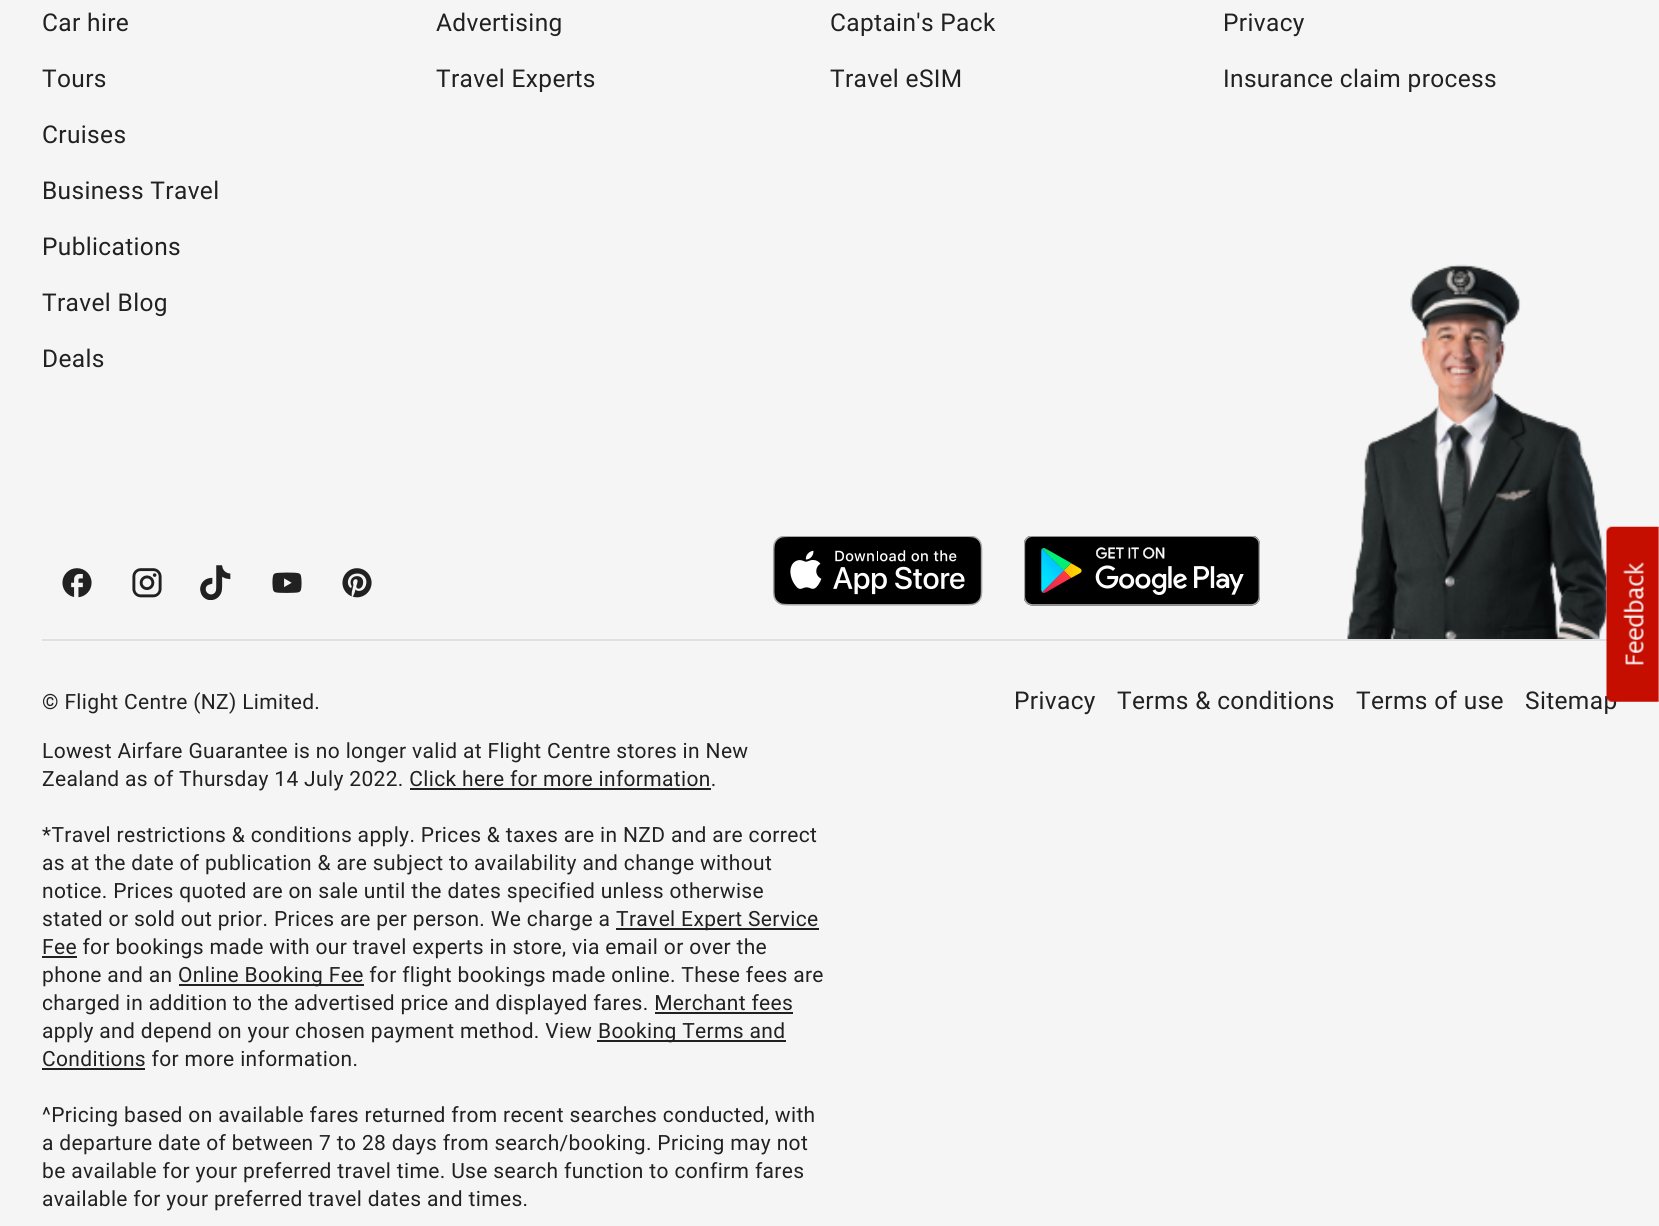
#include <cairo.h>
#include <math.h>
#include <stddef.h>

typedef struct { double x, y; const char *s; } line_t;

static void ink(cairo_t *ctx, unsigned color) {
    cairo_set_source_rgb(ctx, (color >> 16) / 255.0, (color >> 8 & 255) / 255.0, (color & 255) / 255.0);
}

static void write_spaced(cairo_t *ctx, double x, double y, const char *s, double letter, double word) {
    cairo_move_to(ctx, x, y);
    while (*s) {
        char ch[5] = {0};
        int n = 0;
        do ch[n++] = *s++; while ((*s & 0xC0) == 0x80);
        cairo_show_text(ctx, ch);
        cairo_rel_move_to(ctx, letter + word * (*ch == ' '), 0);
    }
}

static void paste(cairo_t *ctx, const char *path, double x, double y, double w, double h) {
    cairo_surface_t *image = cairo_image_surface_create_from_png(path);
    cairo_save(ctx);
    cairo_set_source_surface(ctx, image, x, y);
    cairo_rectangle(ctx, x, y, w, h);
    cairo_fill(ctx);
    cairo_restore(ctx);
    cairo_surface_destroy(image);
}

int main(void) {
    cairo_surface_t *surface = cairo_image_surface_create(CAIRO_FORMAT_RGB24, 1659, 1226);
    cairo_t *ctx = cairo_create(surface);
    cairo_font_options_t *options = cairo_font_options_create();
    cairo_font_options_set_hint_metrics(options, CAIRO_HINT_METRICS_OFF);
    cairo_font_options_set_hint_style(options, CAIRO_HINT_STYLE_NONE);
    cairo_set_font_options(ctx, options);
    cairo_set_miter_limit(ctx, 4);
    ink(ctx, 0xF5F5F5);
    cairo_paint(ctx);
    cairo_select_font_face(ctx, "Roboto", CAIRO_FONT_SLANT_NORMAL, CAIRO_FONT_WEIGHT_NORMAL);
    cairo_set_font_size(ctx, 24.5);
    ink(ctx, 0x212121);
    {
        static const line_t items[] = {
            {42, 31, "Car hire"},
            {42, 87, "Tours"},
            {42, 143, "Cruises"},
            {42, 199, "Business Travel"},
            {42, 255, "Publications"},
            {42, 311, "Travel Blog"},
            {42, 367, "Deals"},
            {436, 31, "Advertising"},
            {436, 87, "Travel Experts"},
            {830, 31, "Captain's Pack"},
            {830, 87, "Travel eSIM"},
            {1223, 31, "Privacy"},
            {1223, 87, "Insurance claim process"},
        };
        for (size_t i = 0; i < sizeof items / sizeof *items; i++) {
            write_spaced(ctx, items[i].x, items[i].y, items[i].s, 0.35, 0);
        }
    }
    paste(ctx, "media/1.png", 62, 568, 30, 30);
    paste(ctx, "media/2.png", 132, 568, 30, 30);
    paste(ctx, "media/3.png", 200, 565, 31, 35);
    paste(ctx, "media/4.png", 272, 572, 30, 21);
    paste(ctx, "media/5.png", 342, 568, 30, 30);
    paste(ctx, "media/6.png", 772, 536, 211, 70);
    paste(ctx, "media/7.png", 1024, 536, 236, 70);
    paste(ctx, "media/8.png", 1347, 264, 260, 375);
    ink(ctx, 0xE0E0E0);
    cairo_rectangle(ctx, 42, 639, 1565, 2);
    cairo_fill(ctx);
    cairo_set_font_size(ctx, 21);
    ink(ctx, 0x212121);
    {
        static const line_t items[] = {
            {42, 709, "© Flight Centre (NZ) Limited."},
            {42, 758, "Lowest Airfare Guarantee is no longer valid at Flight Centre stores in New"},
            {42, 786, "Zealand as of Thursday 14 July 2022. Click here for more information."},
        };
        for (size_t i = 0; i < sizeof items / sizeof *items; i++) {
            write_spaced(ctx, items[i].x, items[i].y, items[i].s, 0.35, 0);
        }
    }
    cairo_rectangle(ctx, 410, 788, 301, 2);
    cairo_fill(ctx);
    {
        static const line_t items[] = {
            {42, 842, "*Travel restrictions & conditions apply. Prices & taxes are in NZD and are correct"},
            {42, 870, "as at the date of publication & are subject to availability and change without"},
            {42, 898, "notice. Prices quoted are on sale until the dates specified unless otherwise"},
            {42, 926, "stated or sold out prior. Prices are per person. We charge a"},
        };
        for (size_t i = 0; i < sizeof items / sizeof *items; i++) {
            write_spaced(ctx, items[i].x, items[i].y, items[i].s, 0.35, 0);
        }
    }
    cairo_rectangle(ctx, 616, 928, 203, 2);
    cairo_fill(ctx);
    write_spaced(ctx, 616, 926, "Travel Expert Service", 0.35, 0);
    cairo_rectangle(ctx, 42, 956, 35, 2);
    cairo_fill(ctx);
    write_spaced(ctx, 42, 954, "Fee for bookings made with our travel experts in store, via email or over the", 0.35, 0);
    write_spaced(ctx, 42, 982, "phone and an", 0.35, 0);
    cairo_rectangle(ctx, 179, 984, 185, 2);
    cairo_fill(ctx);
    write_spaced(ctx, 178, 982, "Online Booking Fee for flight bookings made online. These fees are", 0.35, 0);
    write_spaced(ctx, 42, 1010, "charged in addition to the advertised price and displayed fares. Merchant fees", 0.35, 0);
    cairo_rectangle(ctx, 655, 1012, 138, 2);
    cairo_fill(ctx);
    write_spaced(ctx, 42, 1038, "apply and depend on your chosen payment method. View", 0.35, 0);
    cairo_rectangle(ctx, 597, 1040, 189, 2);
    cairo_fill(ctx);
    write_spaced(ctx, 598, 1038, "Booking Terms and", 0.35, 0);
    write_spaced(ctx, 42, 1066, "Conditions for more information.", 0.35, 0);
    cairo_rectangle(ctx, 42, 1068, 103, 2);
    cairo_fill(ctx);
    {
        static const line_t items[] = {
            {42, 1122, "^Pricing based on available fares returned from recent searches conducted, with"},
            {42, 1150, "a departure date of between 7 to 28 days from search/booking. Pricing may not"},
            {42, 1178, "be available for your preferred travel time. Use search function to confirm fares"},
            {42, 1206, "available for your preferred travel dates and times."},
        };
        for (size_t i = 0; i < sizeof items / sizeof *items; i++) {
            write_spaced(ctx, items[i].x, items[i].y, items[i].s, 0.35, 0);
        }
    }
    cairo_set_font_size(ctx, 24.5);
    {
        static const line_t items[] = {
            {1014, 709, "Privacy"},
            {1117, 709, "Terms & conditions"},
            {1356, 709, "Terms of use"},
            {1525, 709, "Sitemap"},
        };
        for (size_t i = 0; i < sizeof items / sizeof *items; i++) {
            write_spaced(ctx, items[i].x, items[i].y, items[i].s, 0.35, 0);
        }
    }
    paste(ctx, "media/9.png", 1606, 526, 53, 176);
    cairo_surface_write_to_png(surface, "image.png");
    cairo_font_options_destroy(options);
    cairo_destroy(ctx);
    cairo_surface_destroy(surface);
    return 0;
}
